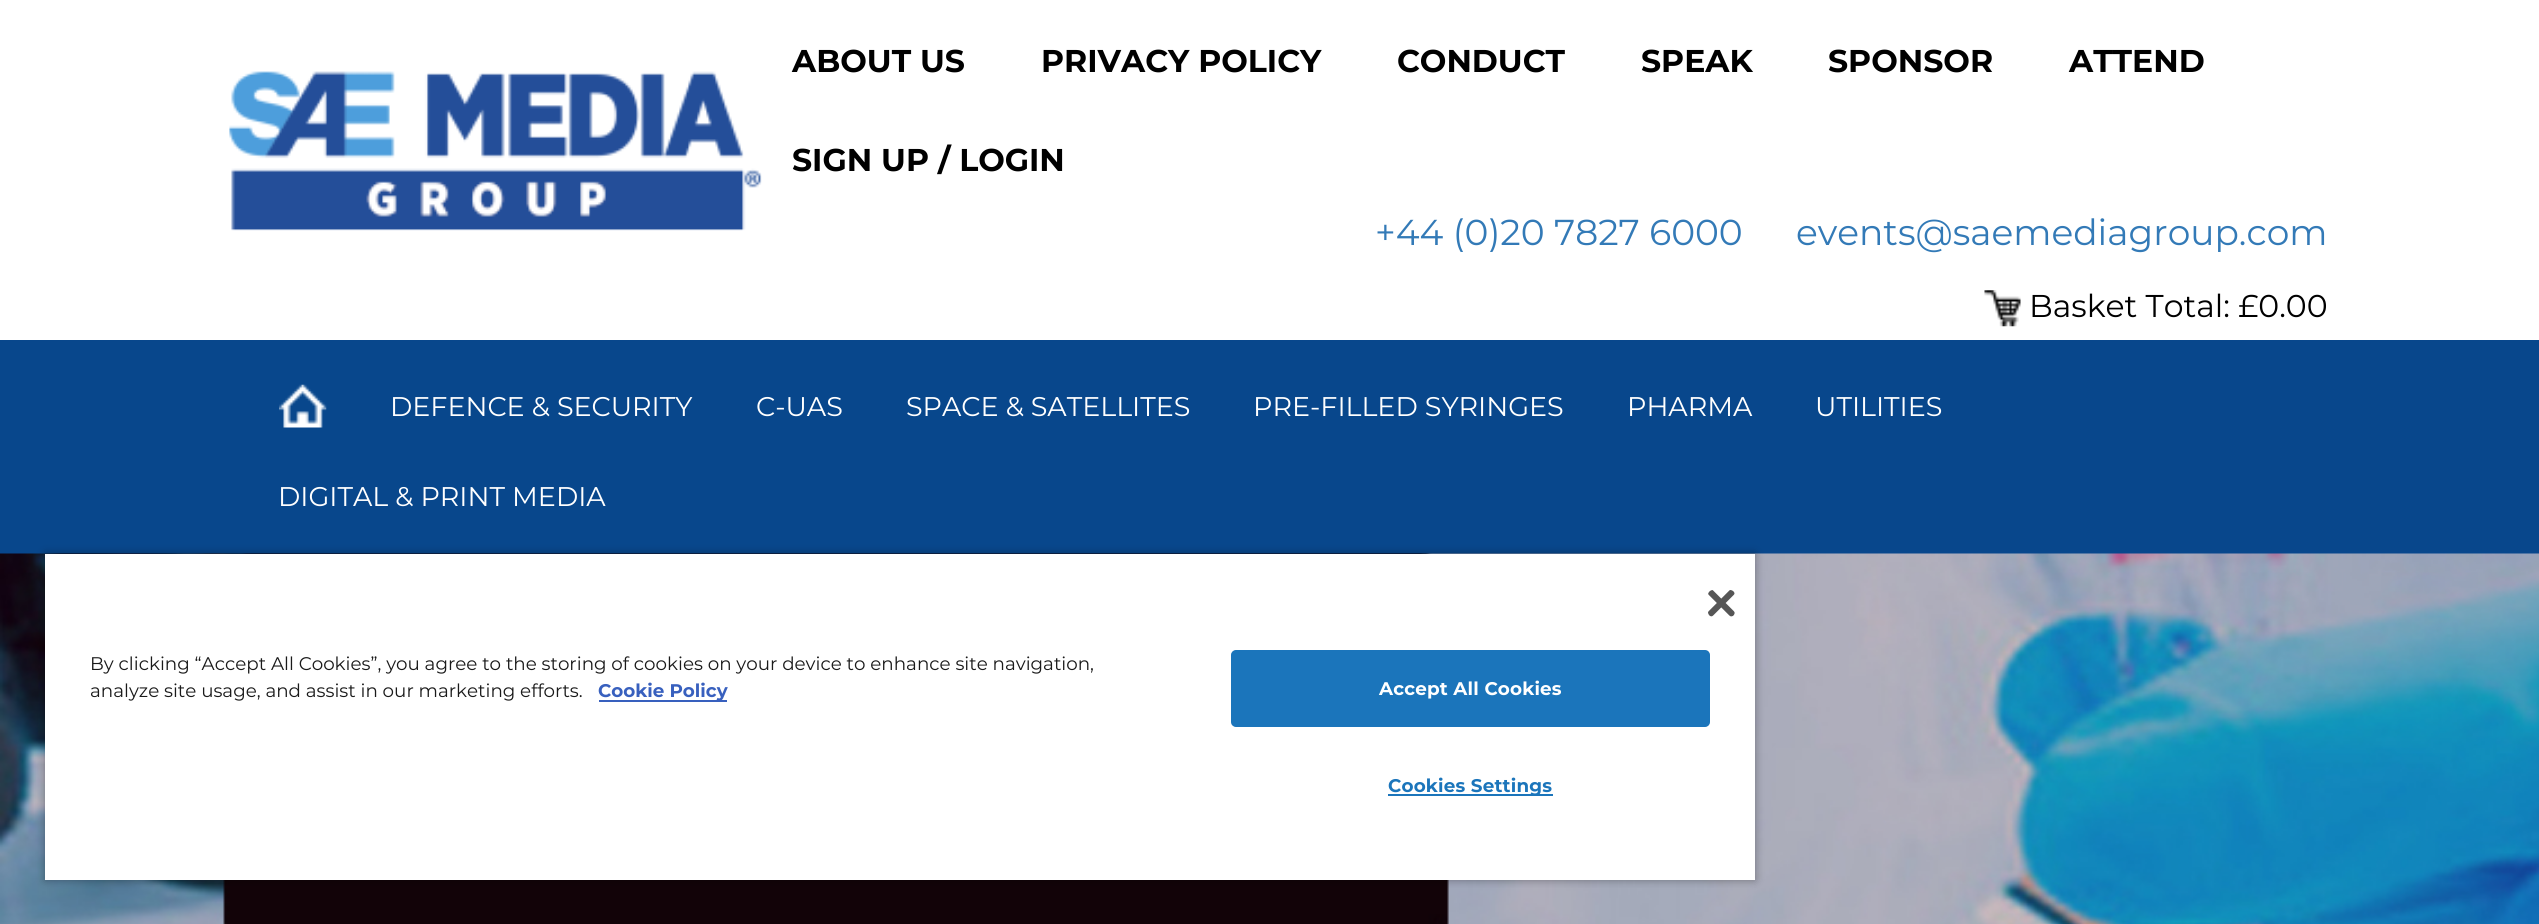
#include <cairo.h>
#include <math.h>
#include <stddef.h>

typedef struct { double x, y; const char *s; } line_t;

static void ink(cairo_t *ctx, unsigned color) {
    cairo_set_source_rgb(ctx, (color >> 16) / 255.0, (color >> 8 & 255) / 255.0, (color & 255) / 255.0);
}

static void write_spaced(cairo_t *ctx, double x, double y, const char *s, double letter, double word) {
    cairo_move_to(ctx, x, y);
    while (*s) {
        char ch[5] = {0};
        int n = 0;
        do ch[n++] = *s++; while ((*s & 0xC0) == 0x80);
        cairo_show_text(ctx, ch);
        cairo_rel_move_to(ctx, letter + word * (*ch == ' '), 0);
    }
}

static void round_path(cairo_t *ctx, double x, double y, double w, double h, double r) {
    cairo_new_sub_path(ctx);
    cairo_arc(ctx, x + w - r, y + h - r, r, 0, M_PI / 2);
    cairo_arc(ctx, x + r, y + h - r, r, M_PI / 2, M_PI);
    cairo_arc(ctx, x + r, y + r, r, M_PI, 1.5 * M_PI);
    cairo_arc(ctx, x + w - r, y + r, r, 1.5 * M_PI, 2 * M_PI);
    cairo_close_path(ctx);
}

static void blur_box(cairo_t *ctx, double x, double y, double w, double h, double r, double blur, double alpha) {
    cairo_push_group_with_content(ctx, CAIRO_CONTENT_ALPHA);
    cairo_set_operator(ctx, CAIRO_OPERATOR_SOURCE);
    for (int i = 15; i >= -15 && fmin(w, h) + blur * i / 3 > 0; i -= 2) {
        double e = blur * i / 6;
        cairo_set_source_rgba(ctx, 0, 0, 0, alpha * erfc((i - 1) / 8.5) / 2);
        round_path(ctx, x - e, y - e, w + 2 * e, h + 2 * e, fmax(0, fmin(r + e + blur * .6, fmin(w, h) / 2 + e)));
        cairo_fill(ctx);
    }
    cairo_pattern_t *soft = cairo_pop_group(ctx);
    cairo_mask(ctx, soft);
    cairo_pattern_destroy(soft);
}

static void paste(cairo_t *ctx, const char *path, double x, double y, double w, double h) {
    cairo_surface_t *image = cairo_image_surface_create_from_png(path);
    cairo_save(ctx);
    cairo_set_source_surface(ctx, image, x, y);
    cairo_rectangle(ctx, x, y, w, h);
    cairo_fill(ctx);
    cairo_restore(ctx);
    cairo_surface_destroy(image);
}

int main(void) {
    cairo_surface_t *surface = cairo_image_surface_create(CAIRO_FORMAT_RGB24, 2539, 924);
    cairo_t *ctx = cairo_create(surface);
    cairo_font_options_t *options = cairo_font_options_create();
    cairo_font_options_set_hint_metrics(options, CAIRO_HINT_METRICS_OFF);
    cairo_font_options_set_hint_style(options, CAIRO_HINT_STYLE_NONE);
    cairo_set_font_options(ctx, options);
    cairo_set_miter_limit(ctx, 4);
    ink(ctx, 0xFFFFFF);
    cairo_paint(ctx);
    paste(ctx, "media/1.png", 229, 71, 533, 160);
    cairo_select_font_face(ctx, "Montserrat", CAIRO_FONT_SLANT_NORMAL, CAIRO_FONT_WEIGHT_BOLD);
    cairo_set_font_size(ctx, 31.5);
    ink(ctx, 0x000000);
    {
        static const line_t items[] = {
            {792, 72, "ABOUT US"},
            {1041, 72, "PRIVACY POLICY"},
            {1397, 72, "CONDUCT"},
            {1641, 72, "SPEAK"},
            {1828, 72, "SPONSOR"},
            {2069, 72, "ATTEND"},
            {792, 171, "SIGN UP / LOGIN"},
        };
        for (size_t i = 0; i < sizeof items / sizeof *items; i++) {
            cairo_move_to(ctx, items[i].x, items[i].y);
            cairo_show_text(ctx, items[i].s);
        }
    }
    cairo_select_font_face(ctx, "Montserrat", CAIRO_FONT_SLANT_NORMAL, CAIRO_FONT_WEIGHT_NORMAL);
    cairo_set_font_size(ctx, 36);
    ink(ctx, 0x337AB7);
    cairo_move_to(ctx, 1375, 245);
    cairo_show_text(ctx, "+44 (0)20 7827 6000");
    cairo_move_to(ctx, 1796, 245);
    cairo_show_text(ctx, "events@saemediagroup.com");
    paste(ctx, "media/2.png", 1984, 290, 37, 37);
    cairo_set_font_size(ctx, 31.5);
    ink(ctx, 0x000000);
    cairo_move_to(ctx, 2029, 317);
    cairo_show_text(ctx, "Basket Total: £0.00");
    ink(ctx, 0x08478C);
    cairo_rectangle(ctx, 0, 340, 2539, 214);
    cairo_fill(ctx);
    paste(ctx, "media/3.png", 279, 384, 48, 44);
    cairo_set_font_size(ctx, 27);
    ink(ctx, 0xFFFFFF);
    {
        static const line_t items[] = {
            {390, 416, "DEFENCE & SECURITY"},
            {756, 416, "C-UAS"},
            {906, 416, "SPACE & SATELLITES"},
            {1253, 416, "PRE-FILLED SYRINGES"},
            {1627, 416, "PHARMA"},
            {1815, 416, "UTILITIES"},
            {278, 506, "DIGITAL & PRINT MEDIA"},
        };
        for (size_t i = 0; i < sizeof items / sizeof *items; i++) {
            cairo_move_to(ctx, items[i].x, items[i].y);
            cairo_show_text(ctx, items[i].s);
        }
    }
    paste(ctx, "media/4.png", 0, 553, 2539, 371);
    ink(ctx, 0x000000);
    blur_box(ctx, 45, 554, 1710, 326, 0, 4.5, 0.35);
    ink(ctx, 0xFFFFFF);
    cairo_rectangle(ctx, 45, 554, 1710, 326);
    cairo_fill(ctx);
    paste(ctx, "media/5.png", 1708, 590, 27, 27);
    cairo_set_font_size(ctx, 18.3);
    ink(ctx, 0x1A1A1A);
    cairo_move_to(ctx, 90, 670);
    cairo_show_text(ctx, "By clicking “Accept All Cookies”, you agree to the storing of cookies on your device to enhance site navigation,");
    cairo_move_to(ctx, 90, 697);
    cairo_show_text(ctx, "analyze site usage, and assist in our marketing efforts.");
    ink(ctx, 0x3860BE);
    cairo_rectangle(ctx, 599, 700, 128, 2);
    cairo_fill(ctx);
    cairo_select_font_face(ctx, "Montserrat", CAIRO_FONT_SLANT_NORMAL, CAIRO_FONT_WEIGHT_BOLD);
    cairo_move_to(ctx, 598, 697);
    cairo_show_text(ctx, "Cookie Policy");
    ink(ctx, 0x1B75BB);
    round_path(ctx, 1232, 651, 477, 75, 4);
    cairo_fill_preserve(ctx);
    cairo_stroke(ctx);
    ink(ctx, 0xFFFFFF);
    write_spaced(ctx, 1379, 695, "Accept All Cookies", 0.2, 0);
    ink(ctx, 0x1B75BB);
    cairo_rectangle(ctx, 1388, 794, 165, 2);
    cairo_fill(ctx);
    write_spaced(ctx, 1388, 792, "Cookies Settings", 0.2, 0);
    cairo_surface_write_to_png(surface, "image.png");
    cairo_font_options_destroy(options);
    cairo_destroy(ctx);
    cairo_surface_destroy(surface);
    return 0;
}
